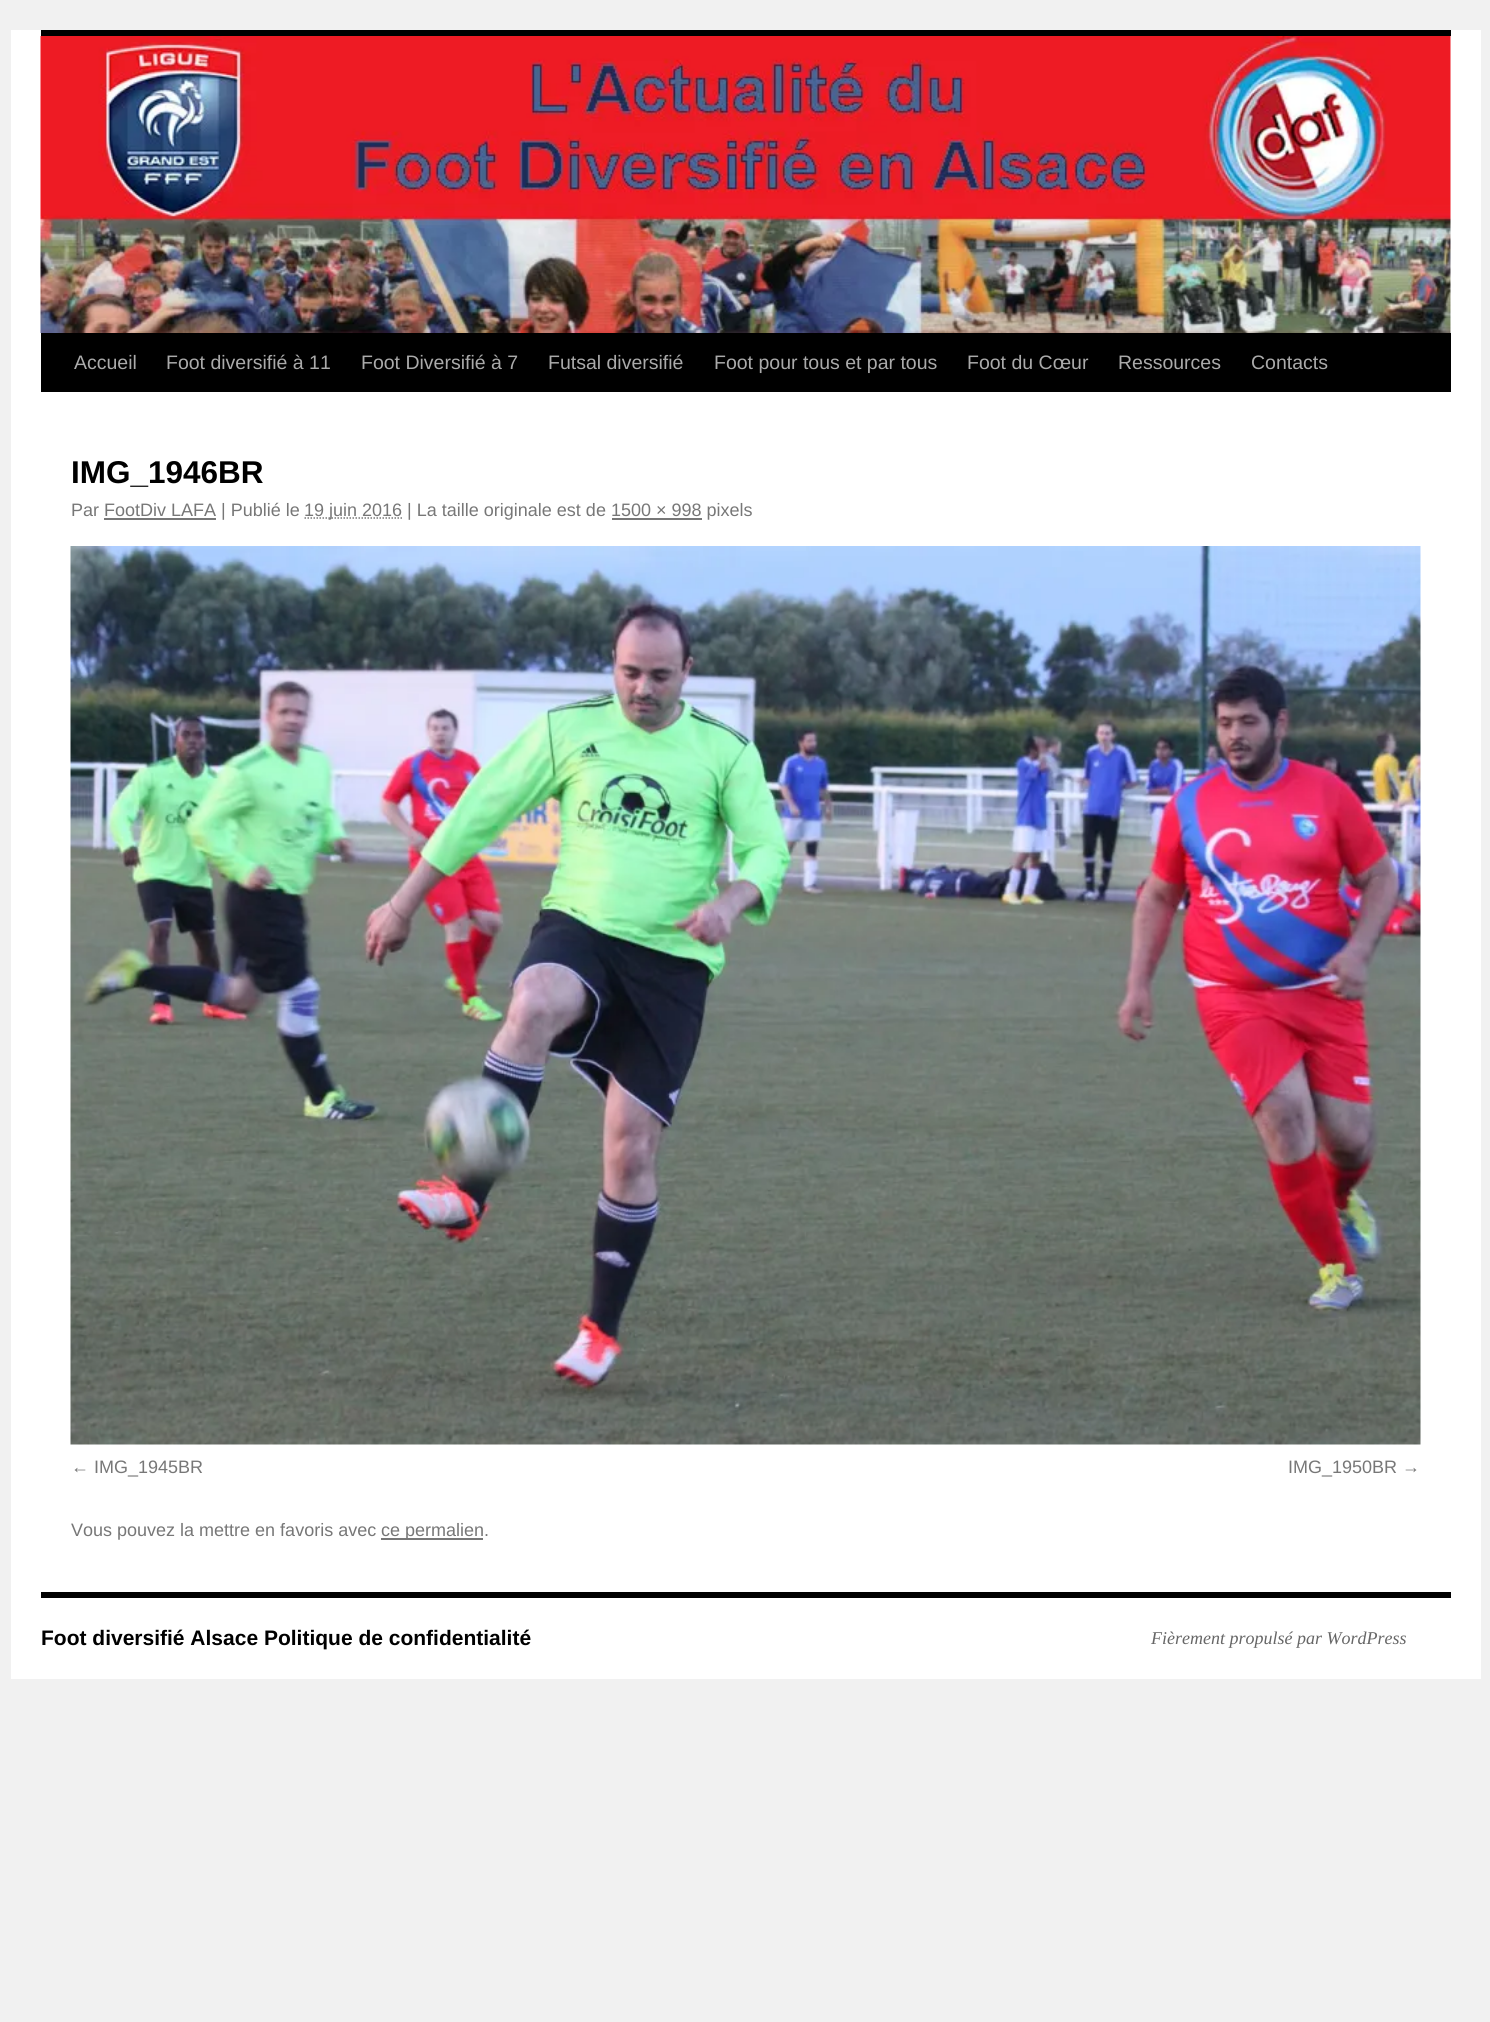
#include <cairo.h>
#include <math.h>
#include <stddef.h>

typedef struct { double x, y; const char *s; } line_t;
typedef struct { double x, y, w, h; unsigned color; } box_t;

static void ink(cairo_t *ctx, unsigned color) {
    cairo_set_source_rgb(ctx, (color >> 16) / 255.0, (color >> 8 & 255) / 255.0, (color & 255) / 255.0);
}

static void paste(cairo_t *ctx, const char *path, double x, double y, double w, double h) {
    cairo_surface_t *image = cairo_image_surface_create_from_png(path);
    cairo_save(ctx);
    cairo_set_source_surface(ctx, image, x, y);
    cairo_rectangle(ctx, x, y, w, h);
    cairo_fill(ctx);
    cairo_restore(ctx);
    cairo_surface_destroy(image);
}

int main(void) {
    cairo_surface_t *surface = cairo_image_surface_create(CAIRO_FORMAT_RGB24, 1490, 2022);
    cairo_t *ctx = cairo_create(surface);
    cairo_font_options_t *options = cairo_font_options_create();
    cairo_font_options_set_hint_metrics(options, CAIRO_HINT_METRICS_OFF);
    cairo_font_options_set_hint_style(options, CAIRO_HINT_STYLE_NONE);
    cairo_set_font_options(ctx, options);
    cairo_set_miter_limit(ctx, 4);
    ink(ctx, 0xF1F1F1);
    cairo_paint(ctx);
    {
        static const box_t items[] = {
            {11, 30, 1470, 1649, 0xFFFFFF},
            {41, 30, 1410, 6, 0x000000},
            {41, 333, 1410, 59, 0x000000},
        };
        for (size_t i = 0; i < sizeof items / sizeof *items; i++) {
            ink(ctx, items[i].color);
            cairo_rectangle(ctx, items[i].x, items[i].y, items[i].w, items[i].h);
            cairo_fill(ctx);
        }
    }
    paste(ctx, "media/1.png", 40, 36, 1411, 297);
    cairo_select_font_face(ctx, "Liberation Sans", CAIRO_FONT_SLANT_NORMAL, CAIRO_FONT_WEIGHT_NORMAL);
    cairo_set_font_size(ctx, 19.5);
    ink(ctx, 0xAAAAAA);
    {
        static const line_t items[] = {
            {74, 369, "Accueil"},
            {166, 369, "Foot diversifié à 11"},
            {361, 369, "Foot Diversifié à 7"},
            {548, 369, "Futsal diversifié"},
            {714, 369, "Foot pour tous et par tous"},
            {967, 369, "Foot du Cœur"},
            {1118, 369, "Ressources"},
            {1251, 369, "Contacts"},
        };
        for (size_t i = 0; i < sizeof items / sizeof *items; i++) {
            cairo_move_to(ctx, items[i].x, items[i].y);
            cairo_show_text(ctx, items[i].s);
        }
    }
    cairo_select_font_face(ctx, "Liberation Sans", CAIRO_FONT_SLANT_NORMAL, CAIRO_FONT_WEIGHT_BOLD);
    cairo_set_font_size(ctx, 31.5);
    ink(ctx, 0x000000);
    cairo_move_to(ctx, 71, 483);
    cairo_show_text(ctx, "IMG_1946BR");
    cairo_select_font_face(ctx, "Liberation Sans", CAIRO_FONT_SLANT_NORMAL, CAIRO_FONT_WEIGHT_NORMAL);
    cairo_set_font_size(ctx, 18);
    ink(ctx, 0x777777);
    cairo_move_to(ctx, 71, 516);
    cairo_show_text(ctx, "Par FootDiv LAFA | Publié le");
    cairo_new_path(ctx);
    cairo_move_to(ctx, 304.5, 518);
    cairo_line_to(ctx, 402.5, 518);
    cairo_set_line_width(ctx, 1.5);
    cairo_set_dash(ctx, (double[]){1.5, 1.5}, 2, 0);
    cairo_stroke(ctx);
    cairo_move_to(ctx, 304, 516);
    cairo_show_text(ctx, "19 juin 2016 | La taille originale est de 1500 × 998 pixels");
    cairo_rectangle(ctx, 104, 518, 112, 2);
    cairo_fill(ctx);
    cairo_rectangle(ctx, 612, 518, 90, 2);
    cairo_fill(ctx);
    paste(ctx, "media/2.png", 70, 546, 1351, 899);
    {
        static const line_t items[] = {
            {71, 1473, "← IMG_1945BR"},
            {1288, 1473, "IMG_1950BR →"},
            {71, 1536, "Vous pouvez la mettre en favoris avec"},
        };
        for (size_t i = 0; i < sizeof items / sizeof *items; i++) {
            cairo_move_to(ctx, items[i].x, items[i].y);
            cairo_show_text(ctx, items[i].s);
        }
    }
    cairo_rectangle(ctx, 381, 1538, 102, 2);
    cairo_fill(ctx);
    cairo_move_to(ctx, 381, 1536);
    cairo_show_text(ctx, "ce permalien.");
    ink(ctx, 0x000000);
    cairo_rectangle(ctx, 41, 1592, 1410, 6);
    cairo_fill(ctx);
    cairo_select_font_face(ctx, "Liberation Sans", CAIRO_FONT_SLANT_NORMAL, CAIRO_FONT_WEIGHT_BOLD);
    cairo_set_font_size(ctx, 21);
    cairo_move_to(ctx, 41, 1645);
    cairo_show_text(ctx, "Foot diversifié Alsace Politique de confidentialité");
    cairo_select_font_face(ctx, "Liberation Serif", CAIRO_FONT_SLANT_ITALIC, CAIRO_FONT_WEIGHT_NORMAL);
    cairo_set_font_size(ctx, 18);
    ink(ctx, 0x666666);
    cairo_move_to(ctx, 1151, 1644);
    cairo_show_text(ctx, "Fièrement propulsé par WordPress");
    cairo_surface_write_to_png(surface, "image.png");
    cairo_font_options_destroy(options);
    cairo_destroy(ctx);
    cairo_surface_destroy(surface);
    return 0;
}
